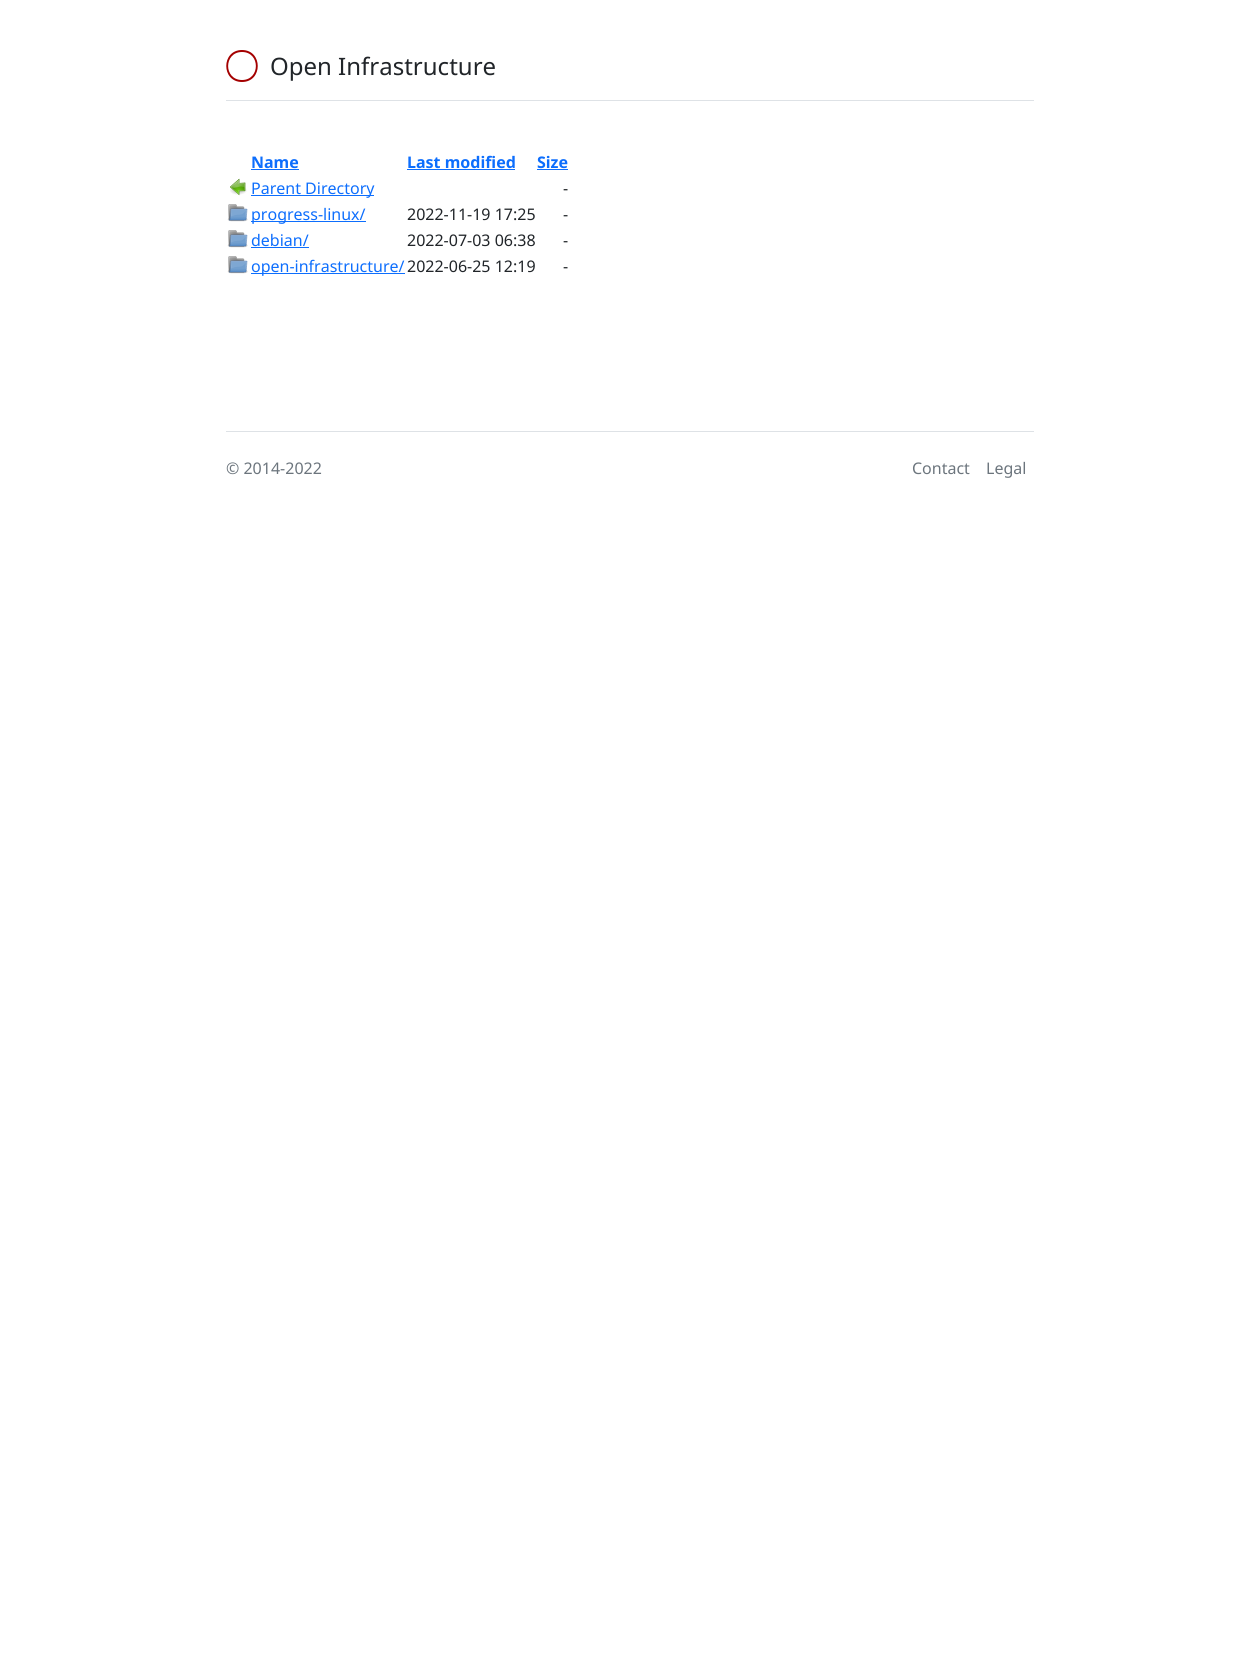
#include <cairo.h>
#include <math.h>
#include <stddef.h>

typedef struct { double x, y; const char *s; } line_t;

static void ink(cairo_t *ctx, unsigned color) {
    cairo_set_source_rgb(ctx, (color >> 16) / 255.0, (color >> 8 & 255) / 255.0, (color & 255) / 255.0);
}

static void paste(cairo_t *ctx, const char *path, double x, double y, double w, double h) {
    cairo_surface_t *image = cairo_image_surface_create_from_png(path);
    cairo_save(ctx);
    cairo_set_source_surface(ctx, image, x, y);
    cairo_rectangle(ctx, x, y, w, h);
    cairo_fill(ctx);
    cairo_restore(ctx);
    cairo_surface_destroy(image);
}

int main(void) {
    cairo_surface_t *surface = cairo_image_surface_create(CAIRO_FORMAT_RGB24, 1260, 1670);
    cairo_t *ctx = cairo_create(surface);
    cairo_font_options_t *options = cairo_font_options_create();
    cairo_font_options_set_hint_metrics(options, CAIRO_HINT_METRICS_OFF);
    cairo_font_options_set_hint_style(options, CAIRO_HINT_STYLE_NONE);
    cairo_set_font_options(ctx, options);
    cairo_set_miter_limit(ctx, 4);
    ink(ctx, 0xFFFFFF);
    cairo_paint(ctx);
    ink(ctx, 0xDEE2E6);
    cairo_rectangle(ctx, 226, 100, 808, 1);
    cairo_fill(ctx);
    ink(ctx, 0xA40000);
    cairo_new_path(ctx);
    cairo_move_to(ctx, 242, 80);
    cairo_curve_to(ctx, 223.5, 80, 223.5, 52, 242, 52);
    cairo_curve_to(ctx, 260.5, 52, 260.5, 80, 242, 80);
    cairo_close_path(ctx);
    cairo_move_to(ctx, 242, 82);
    cairo_curve_to(ctx, 263, 82, 263, 50, 242, 50);
    cairo_curve_to(ctx, 221, 50, 221, 82, 242, 82);
    cairo_close_path(ctx);
    cairo_fill(ctx);
    cairo_select_font_face(ctx, "Noto Sans", CAIRO_FONT_SLANT_NORMAL, CAIRO_FONT_WEIGHT_NORMAL);
    cairo_set_font_size(ctx, 24);
    ink(ctx, 0x212529);
    cairo_move_to(ctx, 270, 75);
    cairo_show_text(ctx, "Open Infrastructure");
    cairo_select_font_face(ctx, "Noto Sans", CAIRO_FONT_SLANT_NORMAL, CAIRO_FONT_WEIGHT_BOLD);
    cairo_set_font_size(ctx, 16);
    ink(ctx, 0x0D6EFD);
    cairo_move_to(ctx, 251, 168);
    cairo_show_text(ctx, "Name");
    cairo_rectangle(ctx, 251, 169, 48, 1);
    cairo_fill(ctx);
    cairo_move_to(ctx, 407, 168);
    cairo_show_text(ctx, "Last modified");
    cairo_rectangle(ctx, 407, 169, 108, 1);
    cairo_fill(ctx);
    cairo_move_to(ctx, 537, 168);
    cairo_show_text(ctx, "Size");
    cairo_rectangle(ctx, 537, 169, 31, 1);
    cairo_fill(ctx);
    paste(ctx, "media/1.png", 230, 178, 17, 18);
    cairo_rectangle(ctx, 251, 195, 123, 1);
    cairo_fill(ctx);
    cairo_select_font_face(ctx, "Noto Sans", CAIRO_FONT_SLANT_NORMAL, CAIRO_FONT_WEIGHT_NORMAL);
    cairo_move_to(ctx, 251, 194);
    cairo_show_text(ctx, "Parent Directory");
    ink(ctx, 0x212529);
    cairo_move_to(ctx, 563, 194);
    cairo_show_text(ctx, "-");
    paste(ctx, "media/2.png", 227, 204, 21, 18);
    ink(ctx, 0x0D6EFD);
    cairo_rectangle(ctx, 251, 221, 115, 1);
    cairo_fill(ctx);
    cairo_move_to(ctx, 251, 220);
    cairo_show_text(ctx, "progress-linux/");
    ink(ctx, 0x212529);
    cairo_move_to(ctx, 407, 220);
    cairo_show_text(ctx, "2022-11-19 17:25");
    cairo_move_to(ctx, 563, 220);
    cairo_show_text(ctx, "-");
    paste(ctx, "media/3.png", 227, 230, 21, 18);
    ink(ctx, 0x0D6EFD);
    cairo_move_to(ctx, 251, 246);
    cairo_show_text(ctx, "debian/");
    cairo_rectangle(ctx, 251, 247, 58, 1);
    cairo_fill(ctx);
    ink(ctx, 0x212529);
    cairo_move_to(ctx, 407, 246);
    cairo_show_text(ctx, "2022-07-03 06:38");
    cairo_move_to(ctx, 563, 246);
    cairo_show_text(ctx, "-");
    paste(ctx, "media/4.png", 227, 256, 21, 18);
    ink(ctx, 0x0D6EFD);
    cairo_rectangle(ctx, 251, 273, 154, 1);
    cairo_fill(ctx);
    cairo_move_to(ctx, 251, 272);
    cairo_show_text(ctx, "open-infrastructure/");
    ink(ctx, 0x212529);
    cairo_move_to(ctx, 407, 272);
    cairo_show_text(ctx, "2022-06-25 12:19");
    cairo_move_to(ctx, 563, 272);
    cairo_show_text(ctx, "-");
    ink(ctx, 0xDEE2E6);
    cairo_rectangle(ctx, 226, 431, 808, 1);
    cairo_fill(ctx);
    ink(ctx, 0x6C757D);
    {
        static const line_t items[] = {
            {226, 474, "© 2014-2022"},
            {912, 474, "Contact"},
            {986, 474, "Legal"},
        };
        for (size_t i = 0; i < sizeof items / sizeof *items; i++) {
            cairo_move_to(ctx, items[i].x, items[i].y);
            cairo_show_text(ctx, items[i].s);
        }
    }
    cairo_surface_write_to_png(surface, "image.png");
    cairo_font_options_destroy(options);
    cairo_destroy(ctx);
    cairo_surface_destroy(surface);
    return 0;
}
